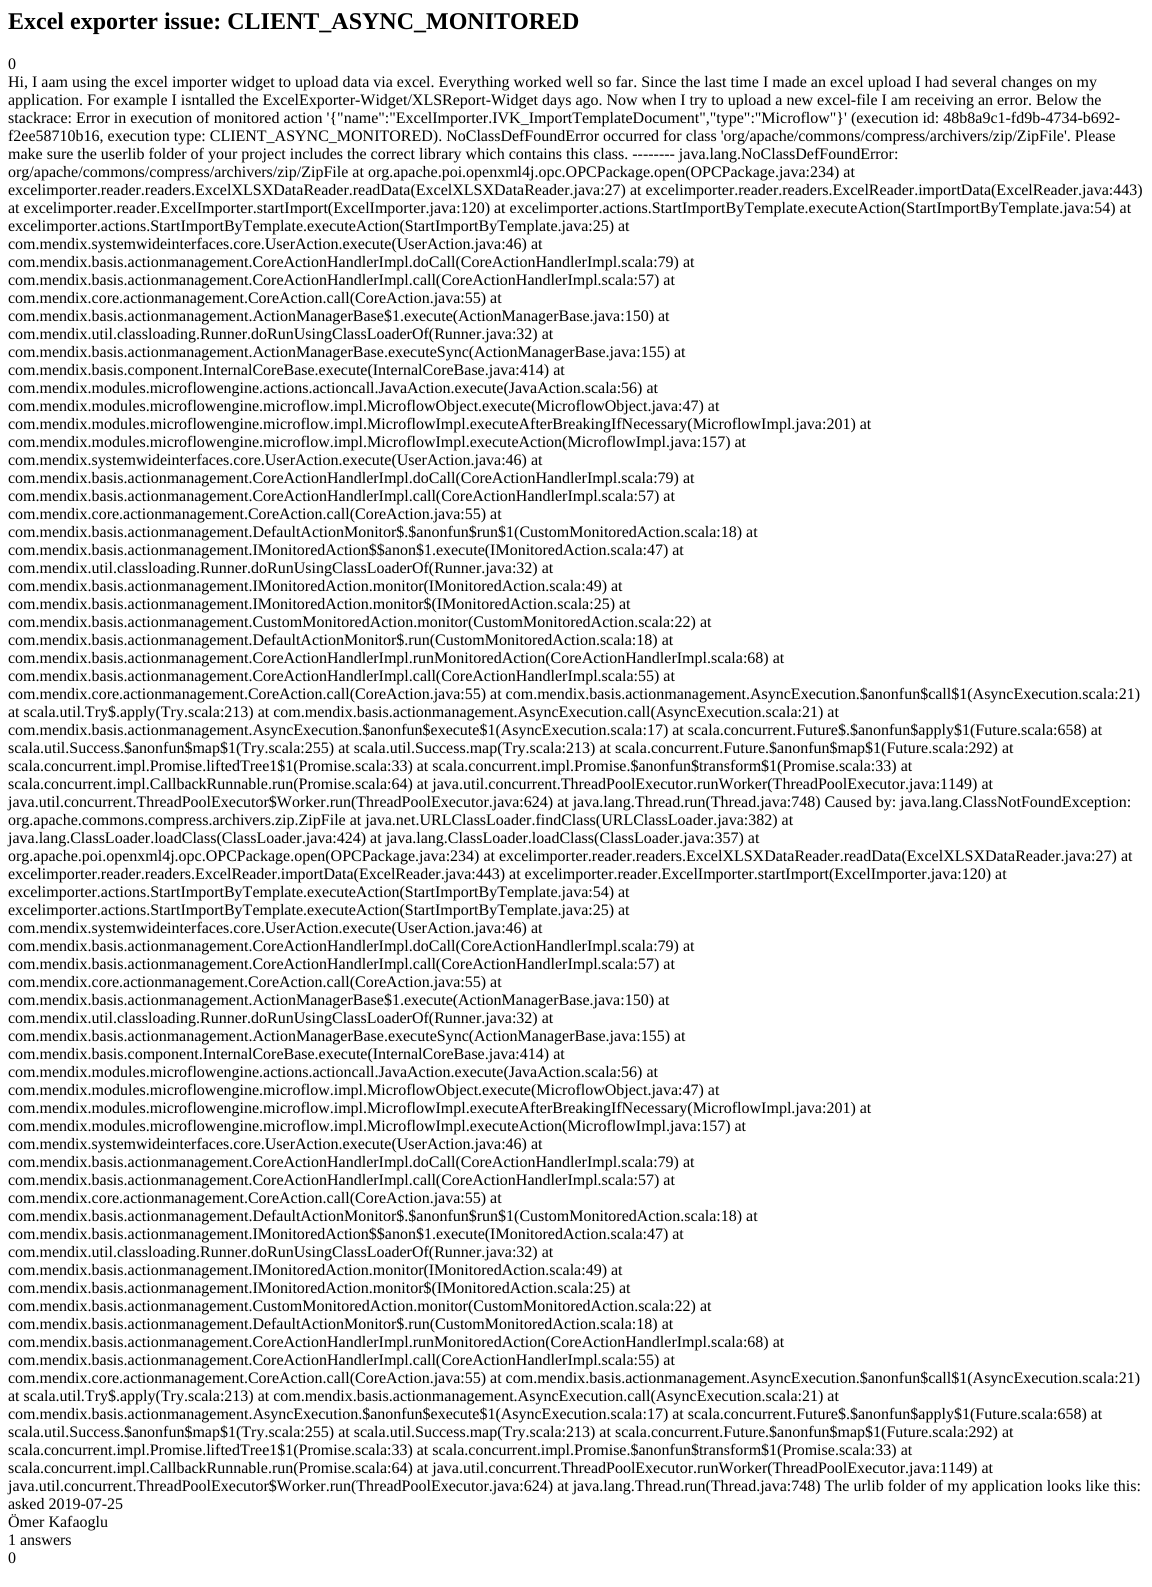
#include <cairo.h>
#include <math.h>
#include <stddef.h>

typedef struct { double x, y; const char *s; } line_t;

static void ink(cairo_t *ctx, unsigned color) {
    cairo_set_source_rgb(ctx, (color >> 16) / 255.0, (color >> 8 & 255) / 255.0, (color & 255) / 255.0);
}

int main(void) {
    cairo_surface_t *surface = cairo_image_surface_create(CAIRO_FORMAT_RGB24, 1152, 1587);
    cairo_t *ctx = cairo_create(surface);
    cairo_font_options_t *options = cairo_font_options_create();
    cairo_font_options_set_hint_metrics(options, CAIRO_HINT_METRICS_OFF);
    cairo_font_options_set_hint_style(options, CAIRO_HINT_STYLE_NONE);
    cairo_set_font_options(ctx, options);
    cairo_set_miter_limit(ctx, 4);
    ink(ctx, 0xFFFFFF);
    cairo_paint(ctx);
    cairo_select_font_face(ctx, "Liberation Serif", CAIRO_FONT_SLANT_NORMAL, CAIRO_FONT_WEIGHT_BOLD);
    cairo_set_font_size(ctx, 24);
    ink(ctx, 0x000000);
    cairo_move_to(ctx, 8, 29);
    cairo_show_text(ctx, "Excel exporter issue: CLIENT_ASYNC_MONITORED");
    cairo_select_font_face(ctx, "Liberation Serif", CAIRO_FONT_SLANT_NORMAL, CAIRO_FONT_WEIGHT_NORMAL);
    cairo_set_font_size(ctx, 16);
    {
        static const line_t items[] = {
            {8, 69, "0"},
            {8, 87, "Hi, I aam using the excel importer widget to upload data via excel. Everything worked well so far. Since the last time I made an excel upload I had several changes on my"},
            {8, 105, "application. For example I isntalled the ExcelExporter-Widget/XLSReport-Widget days ago. Now when I try to upload a new excel-file I am receiving an error. Below the"},
            {8, 123, "stackrace: Error in execution of monitored action '{\"name\":\"ExcelImporter.IVK_ImportTemplateDocument\",\"type\":\"Microflow\"}' (execution id: 48b8a9c1-fd9b-4734-b692-"},
            {8, 141, "f2ee58710b16, execution type: CLIENT_ASYNC_MONITORED). NoClassDefFoundError occurred for class 'org/apache/commons/compress/archivers/zip/ZipFile'. Please"},
            {8, 159, "make sure the userlib folder of your project includes the correct library which contains this class. -------- java.lang.NoClassDefFoundError:"},
            {8, 177, "org/apache/commons/compress/archivers/zip/ZipFile at org.apache.poi.openxml4j.opc.OPCPackage.open(OPCPackage.java:234) at"},
            {8, 195, "excelimporter.reader.readers.ExcelXLSXDataReader.readData(ExcelXLSXDataReader.java:27) at excelimporter.reader.readers.ExcelReader.importData(ExcelReader.java:443)"},
            {8, 213, "at excelimporter.reader.ExcelImporter.startImport(ExcelImporter.java:120) at excelimporter.actions.StartImportByTemplate.executeAction(StartImportByTemplate.java:54) at"},
            {8, 231, "excelimporter.actions.StartImportByTemplate.executeAction(StartImportByTemplate.java:25) at"},
            {8, 249, "com.mendix.systemwideinterfaces.core.UserAction.execute(UserAction.java:46) at"},
            {8, 267, "com.mendix.basis.actionmanagement.CoreActionHandlerImpl.doCall(CoreActionHandlerImpl.scala:79) at"},
            {8, 285, "com.mendix.basis.actionmanagement.CoreActionHandlerImpl.call(CoreActionHandlerImpl.scala:57) at"},
            {8, 303, "com.mendix.core.actionmanagement.CoreAction.call(CoreAction.java:55) at"},
            {8, 321, "com.mendix.basis.actionmanagement.ActionManagerBase$1.execute(ActionManagerBase.java:150) at"},
            {8, 339, "com.mendix.util.classloading.Runner.doRunUsingClassLoaderOf(Runner.java:32) at"},
            {8, 357, "com.mendix.basis.actionmanagement.ActionManagerBase.executeSync(ActionManagerBase.java:155) at"},
            {8, 375, "com.mendix.basis.component.InternalCoreBase.execute(InternalCoreBase.java:414) at"},
            {8, 393, "com.mendix.modules.microflowengine.actions.actioncall.JavaAction.execute(JavaAction.scala:56) at"},
            {8, 411, "com.mendix.modules.microflowengine.microflow.impl.MicroflowObject.execute(MicroflowObject.java:47) at"},
            {8, 429, "com.mendix.modules.microflowengine.microflow.impl.MicroflowImpl.executeAfterBreakingIfNecessary(MicroflowImpl.java:201) at"},
            {8, 447, "com.mendix.modules.microflowengine.microflow.impl.MicroflowImpl.executeAction(MicroflowImpl.java:157) at"},
            {8, 465, "com.mendix.systemwideinterfaces.core.UserAction.execute(UserAction.java:46) at"},
            {8, 483, "com.mendix.basis.actionmanagement.CoreActionHandlerImpl.doCall(CoreActionHandlerImpl.scala:79) at"},
            {8, 501, "com.mendix.basis.actionmanagement.CoreActionHandlerImpl.call(CoreActionHandlerImpl.scala:57) at"},
            {8, 519, "com.mendix.core.actionmanagement.CoreAction.call(CoreAction.java:55) at"},
            {8, 537, "com.mendix.basis.actionmanagement.DefaultActionMonitor$.$anonfun$run$1(CustomMonitoredAction.scala:18) at"},
            {8, 555, "com.mendix.basis.actionmanagement.IMonitoredAction$$anon$1.execute(IMonitoredAction.scala:47) at"},
            {8, 573, "com.mendix.util.classloading.Runner.doRunUsingClassLoaderOf(Runner.java:32) at"},
            {8, 591, "com.mendix.basis.actionmanagement.IMonitoredAction.monitor(IMonitoredAction.scala:49) at"},
            {8, 609, "com.mendix.basis.actionmanagement.IMonitoredAction.monitor$(IMonitoredAction.scala:25) at"},
            {8, 627, "com.mendix.basis.actionmanagement.CustomMonitoredAction.monitor(CustomMonitoredAction.scala:22) at"},
            {8, 645, "com.mendix.basis.actionmanagement.DefaultActionMonitor$.run(CustomMonitoredAction.scala:18) at"},
            {8, 663, "com.mendix.basis.actionmanagement.CoreActionHandlerImpl.runMonitoredAction(CoreActionHandlerImpl.scala:68) at"},
            {8, 681, "com.mendix.basis.actionmanagement.CoreActionHandlerImpl.call(CoreActionHandlerImpl.scala:55) at"},
            {8, 699, "com.mendix.core.actionmanagement.CoreAction.call(CoreAction.java:55) at com.mendix.basis.actionmanagement.AsyncExecution.$anonfun$call$1(AsyncExecution.scala:21)"},
            {8, 717, "at scala.util.Try$.apply(Try.scala:213) at com.mendix.basis.actionmanagement.AsyncExecution.call(AsyncExecution.scala:21) at"},
            {8, 735, "com.mendix.basis.actionmanagement.AsyncExecution.$anonfun$execute$1(AsyncExecution.scala:17) at scala.concurrent.Future$.$anonfun$apply$1(Future.scala:658) at"},
            {8, 753, "scala.util.Success.$anonfun$map$1(Try.scala:255) at scala.util.Success.map(Try.scala:213) at scala.concurrent.Future.$anonfun$map$1(Future.scala:292) at"},
            {8, 771, "scala.concurrent.impl.Promise.liftedTree1$1(Promise.scala:33) at scala.concurrent.impl.Promise.$anonfun$transform$1(Promise.scala:33) at"},
            {8, 789, "scala.concurrent.impl.CallbackRunnable.run(Promise.scala:64) at java.util.concurrent.ThreadPoolExecutor.runWorker(ThreadPoolExecutor.java:1149) at"},
            {8, 807, "java.util.concurrent.ThreadPoolExecutor$Worker.run(ThreadPoolExecutor.java:624) at java.lang.Thread.run(Thread.java:748) Caused by: java.lang.ClassNotFoundException:"},
            {8, 825, "org.apache.commons.compress.archivers.zip.ZipFile at java.net.URLClassLoader.findClass(URLClassLoader.java:382) at"},
            {8, 843, "java.lang.ClassLoader.loadClass(ClassLoader.java:424) at java.lang.ClassLoader.loadClass(ClassLoader.java:357) at"},
            {8, 861, "org.apache.poi.openxml4j.opc.OPCPackage.open(OPCPackage.java:234) at excelimporter.reader.readers.ExcelXLSXDataReader.readData(ExcelXLSXDataReader.java:27) at"},
            {8, 879, "excelimporter.reader.readers.ExcelReader.importData(ExcelReader.java:443) at excelimporter.reader.ExcelImporter.startImport(ExcelImporter.java:120) at"},
            {8, 897, "excelimporter.actions.StartImportByTemplate.executeAction(StartImportByTemplate.java:54) at"},
            {8, 915, "excelimporter.actions.StartImportByTemplate.executeAction(StartImportByTemplate.java:25) at"},
            {8, 933, "com.mendix.systemwideinterfaces.core.UserAction.execute(UserAction.java:46) at"},
            {8, 951, "com.mendix.basis.actionmanagement.CoreActionHandlerImpl.doCall(CoreActionHandlerImpl.scala:79) at"},
            {8, 969, "com.mendix.basis.actionmanagement.CoreActionHandlerImpl.call(CoreActionHandlerImpl.scala:57) at"},
            {8, 987, "com.mendix.core.actionmanagement.CoreAction.call(CoreAction.java:55) at"},
            {8, 1005, "com.mendix.basis.actionmanagement.ActionManagerBase$1.execute(ActionManagerBase.java:150) at"},
            {8, 1023, "com.mendix.util.classloading.Runner.doRunUsingClassLoaderOf(Runner.java:32) at"},
            {8, 1041, "com.mendix.basis.actionmanagement.ActionManagerBase.executeSync(ActionManagerBase.java:155) at"},
            {8, 1059, "com.mendix.basis.component.InternalCoreBase.execute(InternalCoreBase.java:414) at"},
            {8, 1077, "com.mendix.modules.microflowengine.actions.actioncall.JavaAction.execute(JavaAction.scala:56) at"},
            {8, 1095, "com.mendix.modules.microflowengine.microflow.impl.MicroflowObject.execute(MicroflowObject.java:47) at"},
            {8, 1113, "com.mendix.modules.microflowengine.microflow.impl.MicroflowImpl.executeAfterBreakingIfNecessary(MicroflowImpl.java:201) at"},
            {8, 1131, "com.mendix.modules.microflowengine.microflow.impl.MicroflowImpl.executeAction(MicroflowImpl.java:157) at"},
            {8, 1149, "com.mendix.systemwideinterfaces.core.UserAction.execute(UserAction.java:46) at"},
            {8, 1167, "com.mendix.basis.actionmanagement.CoreActionHandlerImpl.doCall(CoreActionHandlerImpl.scala:79) at"},
            {8, 1185, "com.mendix.basis.actionmanagement.CoreActionHandlerImpl.call(CoreActionHandlerImpl.scala:57) at"},
            {8, 1203, "com.mendix.core.actionmanagement.CoreAction.call(CoreAction.java:55) at"},
            {8, 1221, "com.mendix.basis.actionmanagement.DefaultActionMonitor$.$anonfun$run$1(CustomMonitoredAction.scala:18) at"},
            {8, 1239, "com.mendix.basis.actionmanagement.IMonitoredAction$$anon$1.execute(IMonitoredAction.scala:47) at"},
            {8, 1257, "com.mendix.util.classloading.Runner.doRunUsingClassLoaderOf(Runner.java:32) at"},
            {8, 1275, "com.mendix.basis.actionmanagement.IMonitoredAction.monitor(IMonitoredAction.scala:49) at"},
            {8, 1293, "com.mendix.basis.actionmanagement.IMonitoredAction.monitor$(IMonitoredAction.scala:25) at"},
            {8, 1311, "com.mendix.basis.actionmanagement.CustomMonitoredAction.monitor(CustomMonitoredAction.scala:22) at"},
            {8, 1329, "com.mendix.basis.actionmanagement.DefaultActionMonitor$.run(CustomMonitoredAction.scala:18) at"},
            {8, 1347, "com.mendix.basis.actionmanagement.CoreActionHandlerImpl.runMonitoredAction(CoreActionHandlerImpl.scala:68) at"},
            {8, 1365, "com.mendix.basis.actionmanagement.CoreActionHandlerImpl.call(CoreActionHandlerImpl.scala:55) at"},
            {8, 1383, "com.mendix.core.actionmanagement.CoreAction.call(CoreAction.java:55) at com.mendix.basis.actionmanagement.AsyncExecution.$anonfun$call$1(AsyncExecution.scala:21)"},
            {8, 1401, "at scala.util.Try$.apply(Try.scala:213) at com.mendix.basis.actionmanagement.AsyncExecution.call(AsyncExecution.scala:21) at"},
            {8, 1419, "com.mendix.basis.actionmanagement.AsyncExecution.$anonfun$execute$1(AsyncExecution.scala:17) at scala.concurrent.Future$.$anonfun$apply$1(Future.scala:658) at"},
            {8, 1437, "scala.util.Success.$anonfun$map$1(Try.scala:255) at scala.util.Success.map(Try.scala:213) at scala.concurrent.Future.$anonfun$map$1(Future.scala:292) at"},
            {8, 1455, "scala.concurrent.impl.Promise.liftedTree1$1(Promise.scala:33) at scala.concurrent.impl.Promise.$anonfun$transform$1(Promise.scala:33) at"},
            {8, 1473, "scala.concurrent.impl.CallbackRunnable.run(Promise.scala:64) at java.util.concurrent.ThreadPoolExecutor.runWorker(ThreadPoolExecutor.java:1149) at"},
            {8, 1491, "java.util.concurrent.ThreadPoolExecutor$Worker.run(ThreadPoolExecutor.java:624) at java.lang.Thread.run(Thread.java:748) The urlib folder of my application looks like this:"},
            {8, 1509, "asked 2019-07-25"},
            {8, 1527, "Ömer Kafaoglu"},
            {8, 1545, "1 answers"},
            {8, 1563, "0"},
        };
        for (size_t i = 0; i < sizeof items / sizeof *items; i++) {
            cairo_move_to(ctx, items[i].x, items[i].y);
            cairo_show_text(ctx, items[i].s);
        }
    }
    cairo_surface_write_to_png(surface, "image.png");
    cairo_font_options_destroy(options);
    cairo_destroy(ctx);
    cairo_surface_destroy(surface);
    return 0;
}
